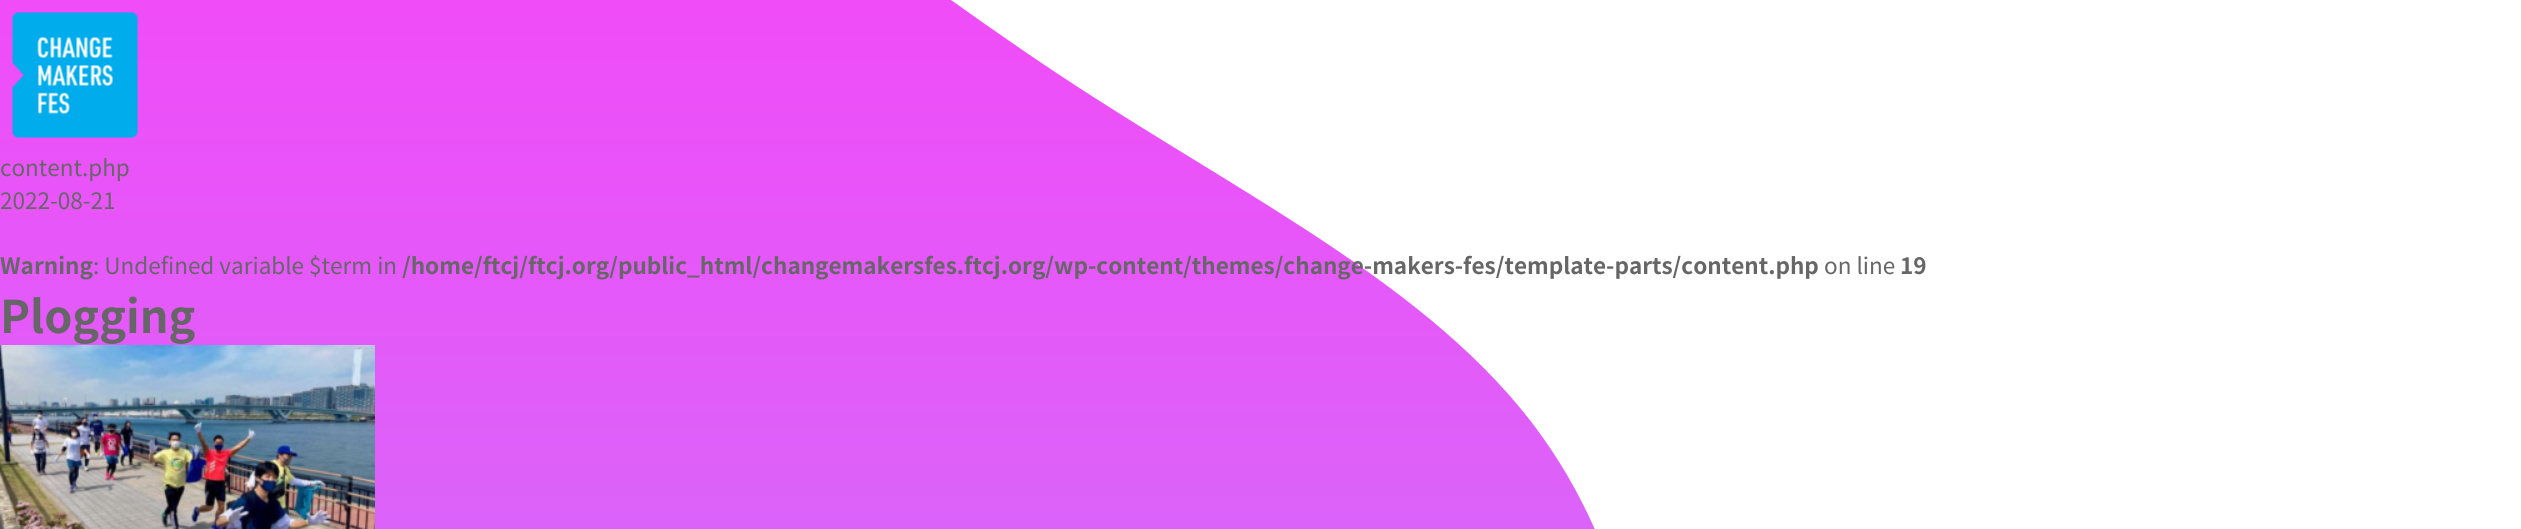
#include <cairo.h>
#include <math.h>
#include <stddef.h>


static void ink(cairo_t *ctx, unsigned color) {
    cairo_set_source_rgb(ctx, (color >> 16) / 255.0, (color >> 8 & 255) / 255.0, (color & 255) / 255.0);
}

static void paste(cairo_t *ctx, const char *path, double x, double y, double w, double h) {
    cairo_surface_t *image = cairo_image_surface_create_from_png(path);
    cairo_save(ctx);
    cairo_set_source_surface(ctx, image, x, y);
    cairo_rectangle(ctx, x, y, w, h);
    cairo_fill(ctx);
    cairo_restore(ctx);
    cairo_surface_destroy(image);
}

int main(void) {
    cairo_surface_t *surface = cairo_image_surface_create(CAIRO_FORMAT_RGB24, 2521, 529);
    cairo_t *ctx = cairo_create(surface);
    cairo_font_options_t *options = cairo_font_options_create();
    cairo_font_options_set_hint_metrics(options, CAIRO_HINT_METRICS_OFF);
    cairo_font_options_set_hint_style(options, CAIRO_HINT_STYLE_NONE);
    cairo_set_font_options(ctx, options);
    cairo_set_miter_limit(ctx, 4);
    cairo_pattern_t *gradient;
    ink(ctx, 0xFFFFFF);
    cairo_paint(ctx);
    gradient = cairo_pattern_create_linear(-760, -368, -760, 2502);
    cairo_pattern_add_color_stop_rgba(gradient, 0, 1, 0.235, 0.969, 1);
    cairo_pattern_add_color_stop_rgba(gradient, 1, 0.545, 0.725, 1, 1);
    cairo_set_source(ctx, gradient);
    cairo_pattern_destroy(gradient);
    cairo_new_path(ctx);
    cairo_move_to(ctx, 1058, 74);
    cairo_curve_to(ctx, 1248, 200, 1448, 293, 1552, 451);
    cairo_curve_to(ctx, 1657, 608, 1667, 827, 1713, 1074);
    cairo_curve_to(ctx, 1759, 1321, 1841, 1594, 1748, 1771);
    cairo_curve_to(ctx, 1655, 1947, 1385, 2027, 1149, 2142);
    cairo_curve_to(ctx, 913, 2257, 708, 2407, 468, 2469);
    cairo_curve_to(ctx, 228, 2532, -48, 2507, -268, 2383);
    cairo_curve_to(ctx, -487, 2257, -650, 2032, -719, 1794);
    cairo_curve_to(ctx, -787, 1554, -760, 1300, -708, 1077);
    cairo_curve_to(ctx, -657, 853, -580, 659, -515, 414);
    cairo_curve_to(ctx, -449, 170, -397, -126, -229, -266);
    cairo_curve_to(ctx, -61, -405, 222, -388, 453, -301);
    cairo_curve_to(ctx, 685, -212, 866, -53, 1058, 74);
    cairo_close_path(ctx);
    cairo_fill(ctx);
    paste(ctx, "media/1.png", 12, 12, 126, 126);
    cairo_select_font_face(ctx, "Noto Sans JP", CAIRO_FONT_SLANT_NORMAL, CAIRO_FONT_WEIGHT_NORMAL);
    cairo_set_font_size(ctx, 22.5);
    ink(ctx, 0x666666);
    cairo_move_to(ctx, 0, 176);
    cairo_show_text(ctx, "content.php");
    cairo_move_to(ctx, 0, 209);
    cairo_show_text(ctx, "2022-08-21");
    cairo_select_font_face(ctx, "Noto Sans JP", CAIRO_FONT_SLANT_NORMAL, CAIRO_FONT_WEIGHT_BOLD);
    cairo_move_to(ctx, 0, 274);
    cairo_show_text(ctx, "Warning");
    cairo_select_font_face(ctx, "Noto Sans JP", CAIRO_FONT_SLANT_NORMAL, CAIRO_FONT_WEIGHT_NORMAL);
    cairo_move_to(ctx, 93, 274);
    cairo_show_text(ctx, ": Undefined variable $term in");
    cairo_select_font_face(ctx, "Noto Sans JP", CAIRO_FONT_SLANT_NORMAL, CAIRO_FONT_WEIGHT_BOLD);
    cairo_move_to(ctx, 402, 274);
    cairo_show_text(ctx, "/home/ftcj/ftcj.org/public_html/changemakersfes.ftcj.org/wp-content/themes/change-makers-fes/template-parts/content.php");
    cairo_select_font_face(ctx, "Noto Sans JP", CAIRO_FONT_SLANT_NORMAL, CAIRO_FONT_WEIGHT_NORMAL);
    cairo_move_to(ctx, 1824, 274);
    cairo_show_text(ctx, "on line");
    cairo_select_font_face(ctx, "Noto Sans JP", CAIRO_FONT_SLANT_NORMAL, CAIRO_FONT_WEIGHT_BOLD);
    cairo_move_to(ctx, 1900, 274);
    cairo_show_text(ctx, "19");
    cairo_set_font_size(ctx, 45);
    cairo_move_to(ctx, 0, 333);
    cairo_show_text(ctx, "Plogging");
    paste(ctx, "media/2.png", 0, 345, 375, 184);
    cairo_surface_write_to_png(surface, "image.png");
    cairo_font_options_destroy(options);
    cairo_destroy(ctx);
    cairo_surface_destroy(surface);
    return 0;
}
